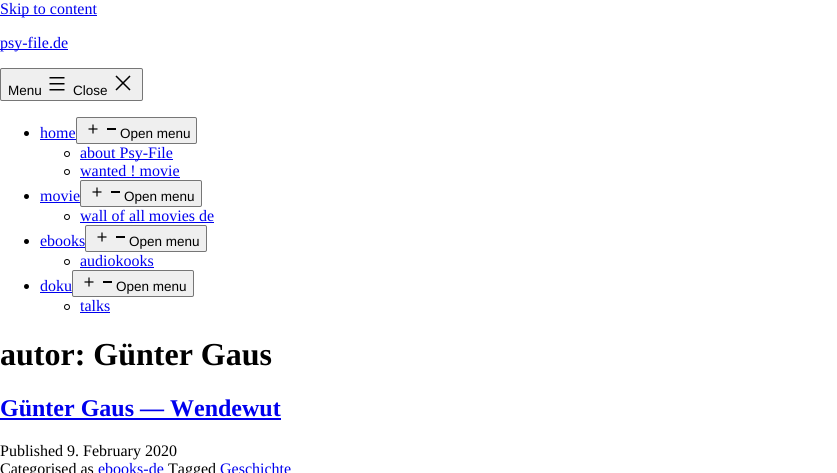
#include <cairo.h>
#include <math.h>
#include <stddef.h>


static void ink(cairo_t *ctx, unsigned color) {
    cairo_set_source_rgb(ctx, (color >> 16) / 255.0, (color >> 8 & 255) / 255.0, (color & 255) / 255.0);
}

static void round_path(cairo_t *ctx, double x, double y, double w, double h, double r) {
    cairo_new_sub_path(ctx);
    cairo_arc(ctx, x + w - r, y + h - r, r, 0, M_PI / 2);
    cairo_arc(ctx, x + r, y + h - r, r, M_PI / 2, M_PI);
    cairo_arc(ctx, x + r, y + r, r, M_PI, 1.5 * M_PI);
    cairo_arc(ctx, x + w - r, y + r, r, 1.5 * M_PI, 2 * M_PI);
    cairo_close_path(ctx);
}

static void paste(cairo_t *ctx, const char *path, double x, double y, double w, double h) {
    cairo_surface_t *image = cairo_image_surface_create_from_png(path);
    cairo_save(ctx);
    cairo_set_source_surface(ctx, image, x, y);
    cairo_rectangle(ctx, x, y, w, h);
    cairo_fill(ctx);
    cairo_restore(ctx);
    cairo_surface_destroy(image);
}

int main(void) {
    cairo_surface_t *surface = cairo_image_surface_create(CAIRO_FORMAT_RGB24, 837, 473);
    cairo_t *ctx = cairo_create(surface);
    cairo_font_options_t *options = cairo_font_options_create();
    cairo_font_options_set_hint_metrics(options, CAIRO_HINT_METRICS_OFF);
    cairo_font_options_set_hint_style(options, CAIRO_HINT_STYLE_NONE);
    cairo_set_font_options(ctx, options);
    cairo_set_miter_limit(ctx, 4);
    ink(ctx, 0xFFFFFF);
    cairo_paint(ctx);
    ink(ctx, 0x0000EE);
    cairo_rectangle(ctx, 0, 15, 97, 1);
    cairo_fill(ctx);
    cairo_select_font_face(ctx, "Liberation Serif", CAIRO_FONT_SLANT_NORMAL, CAIRO_FONT_WEIGHT_NORMAL);
    cairo_set_font_size(ctx, 16);
    cairo_move_to(ctx, 0, 14);
    cairo_show_text(ctx, "Skip to content");
    cairo_rectangle(ctx, 0, 49, 68, 1);
    cairo_fill(ctx);
    cairo_move_to(ctx, 0, 48);
    cairo_show_text(ctx, "psy-file.de");
    ink(ctx, 0xEFEFEF);
    round_path(ctx, 0.5, 68.5, 142, 32, 1.5);
    cairo_fill_preserve(ctx);
    ink(ctx, 0x767676);
    cairo_set_line_width(ctx, 1);
    cairo_stroke(ctx);
    cairo_select_font_face(ctx, "Liberation Sans", CAIRO_FONT_SLANT_NORMAL, CAIRO_FONT_WEIGHT_NORMAL);
    cairo_set_font_size(ctx, 13.5);
    ink(ctx, 0x000000);
    cairo_move_to(ctx, 8, 95);
    cairo_show_text(ctx, "Menu");
    paste(ctx, "media/1.png", 49, 77, 16, 14);
    cairo_move_to(ctx, 73, 95);
    cairo_show_text(ctx, "Close");
    paste(ctx, "media/2.png", 115, 75, 16, 16);
    cairo_arc(ctx, 26.5, 133.5, 2.5, 0, 2 * M_PI);
    cairo_fill(ctx);
    cairo_select_font_face(ctx, "Liberation Serif", CAIRO_FONT_SLANT_NORMAL, CAIRO_FONT_WEIGHT_NORMAL);
    cairo_set_font_size(ctx, 16);
    ink(ctx, 0x0000EE);
    cairo_move_to(ctx, 40, 138);
    cairo_show_text(ctx, "home");
    cairo_rectangle(ctx, 40, 139, 36, 1);
    cairo_fill(ctx);
    ink(ctx, 0xEFEFEF);
    round_path(ctx, 76.5, 117.5, 120, 26, 1.5);
    cairo_fill_preserve(ctx);
    ink(ctx, 0x767676);
    cairo_stroke(ctx);
    paste(ctx, "media/3.png", 88, 124, 10, 10);
    ink(ctx, 0x000000);
    cairo_rectangle(ctx, 107, 128, 9, 2);
    cairo_fill(ctx);
    cairo_select_font_face(ctx, "Liberation Sans", CAIRO_FONT_SLANT_NORMAL, CAIRO_FONT_WEIGHT_NORMAL);
    cairo_set_font_size(ctx, 13.5);
    cairo_move_to(ctx, 120, 138);
    cairo_show_text(ctx, "Open menu");
    cairo_new_path(ctx);
    cairo_arc(ctx, 67, 154, 2.5, 0, 2 * M_PI);
    cairo_stroke(ctx);
    ink(ctx, 0x0000EE);
    cairo_rectangle(ctx, 80, 159, 93, 1);
    cairo_fill(ctx);
    cairo_select_font_face(ctx, "Liberation Serif", CAIRO_FONT_SLANT_NORMAL, CAIRO_FONT_WEIGHT_NORMAL);
    cairo_set_font_size(ctx, 16);
    cairo_move_to(ctx, 80, 158);
    cairo_show_text(ctx, "about Psy-File");
    cairo_new_path(ctx);
    cairo_arc(ctx, 67, 172, 2.5, 0, 2 * M_PI);
    ink(ctx, 0x000000);
    cairo_stroke(ctx);
    ink(ctx, 0x0000EE);
    cairo_move_to(ctx, 80, 176);
    cairo_show_text(ctx, "wanted ! movie");
    cairo_rectangle(ctx, 80, 177, 100, 1);
    cairo_fill(ctx);
    ink(ctx, 0x000000);
    cairo_arc(ctx, 26.5, 196.5, 2.5, 0, 2 * M_PI);
    cairo_fill(ctx);
    ink(ctx, 0x0000EE);
    cairo_move_to(ctx, 40, 201);
    cairo_show_text(ctx, "movie");
    cairo_rectangle(ctx, 40, 202, 40, 1);
    cairo_fill(ctx);
    ink(ctx, 0xEFEFEF);
    round_path(ctx, 80.5, 180.5, 121, 26, 1.5);
    cairo_fill_preserve(ctx);
    ink(ctx, 0x767676);
    cairo_stroke(ctx);
    paste(ctx, "media/3.png", 92, 187, 10, 10);
    ink(ctx, 0x000000);
    cairo_rectangle(ctx, 111, 191, 9, 2);
    cairo_fill(ctx);
    cairo_select_font_face(ctx, "Liberation Sans", CAIRO_FONT_SLANT_NORMAL, CAIRO_FONT_WEIGHT_NORMAL);
    cairo_set_font_size(ctx, 13.5);
    cairo_move_to(ctx, 124, 201);
    cairo_show_text(ctx, "Open menu");
    cairo_new_path(ctx);
    cairo_arc(ctx, 67, 217, 2.5, 0, 2 * M_PI);
    cairo_stroke(ctx);
    cairo_select_font_face(ctx, "Liberation Serif", CAIRO_FONT_SLANT_NORMAL, CAIRO_FONT_WEIGHT_NORMAL);
    cairo_set_font_size(ctx, 16);
    ink(ctx, 0x0000EE);
    cairo_move_to(ctx, 80, 221);
    cairo_show_text(ctx, "wall of all movies de");
    cairo_rectangle(ctx, 80, 222, 134, 1);
    cairo_fill(ctx);
    ink(ctx, 0x000000);
    cairo_arc(ctx, 26.5, 241.5, 2.5, 0, 2 * M_PI);
    cairo_fill(ctx);
    ink(ctx, 0x0000EE);
    cairo_move_to(ctx, 40, 246);
    cairo_show_text(ctx, "ebooks");
    cairo_rectangle(ctx, 40, 247, 45, 1);
    cairo_fill(ctx);
    ink(ctx, 0xEFEFEF);
    round_path(ctx, 85.5, 225.5, 121, 26, 1.5);
    cairo_fill_preserve(ctx);
    ink(ctx, 0x767676);
    cairo_stroke(ctx);
    paste(ctx, "media/3.png", 97, 232, 10, 10);
    ink(ctx, 0x000000);
    cairo_rectangle(ctx, 116, 236, 9, 2);
    cairo_fill(ctx);
    cairo_select_font_face(ctx, "Liberation Sans", CAIRO_FONT_SLANT_NORMAL, CAIRO_FONT_WEIGHT_NORMAL);
    cairo_set_font_size(ctx, 13.5);
    cairo_move_to(ctx, 129, 246);
    cairo_show_text(ctx, "Open menu");
    cairo_new_path(ctx);
    cairo_arc(ctx, 67, 262, 2.5, 0, 2 * M_PI);
    cairo_stroke(ctx);
    cairo_select_font_face(ctx, "Liberation Serif", CAIRO_FONT_SLANT_NORMAL, CAIRO_FONT_WEIGHT_NORMAL);
    cairo_set_font_size(ctx, 16);
    ink(ctx, 0x0000EE);
    cairo_move_to(ctx, 80, 266);
    cairo_show_text(ctx, "audiokooks");
    cairo_rectangle(ctx, 80, 267, 74, 1);
    cairo_fill(ctx);
    ink(ctx, 0x000000);
    cairo_arc(ctx, 26.5, 286.5, 2.5, 0, 2 * M_PI);
    cairo_fill(ctx);
    ink(ctx, 0x0000EE);
    cairo_move_to(ctx, 40, 291);
    cairo_show_text(ctx, "doku");
    cairo_rectangle(ctx, 40, 292, 32, 1);
    cairo_fill(ctx);
    ink(ctx, 0xEFEFEF);
    round_path(ctx, 72.5, 270.5, 121, 26, 1.5);
    cairo_fill_preserve(ctx);
    ink(ctx, 0x767676);
    cairo_stroke(ctx);
    paste(ctx, "media/3.png", 84, 277, 10, 10);
    ink(ctx, 0x000000);
    cairo_rectangle(ctx, 103, 281, 9, 2);
    cairo_fill(ctx);
    cairo_select_font_face(ctx, "Liberation Sans", CAIRO_FONT_SLANT_NORMAL, CAIRO_FONT_WEIGHT_NORMAL);
    cairo_set_font_size(ctx, 13.5);
    cairo_move_to(ctx, 116, 291);
    cairo_show_text(ctx, "Open menu");
    cairo_new_path(ctx);
    cairo_arc(ctx, 67, 307, 2.5, 0, 2 * M_PI);
    cairo_stroke(ctx);
    cairo_select_font_face(ctx, "Liberation Serif", CAIRO_FONT_SLANT_NORMAL, CAIRO_FONT_WEIGHT_NORMAL);
    cairo_set_font_size(ctx, 16);
    ink(ctx, 0x0000EE);
    cairo_move_to(ctx, 80, 311);
    cairo_show_text(ctx, "talks");
    cairo_rectangle(ctx, 80, 312, 30, 1);
    cairo_fill(ctx);
    cairo_select_font_face(ctx, "Liberation Serif", CAIRO_FONT_SLANT_NORMAL, CAIRO_FONT_WEIGHT_BOLD);
    cairo_set_font_size(ctx, 32);
    ink(ctx, 0x000000);
    cairo_move_to(ctx, 0, 365);
    cairo_show_text(ctx, "autor: Günter Gaus");
    cairo_set_font_size(ctx, 24);
    ink(ctx, 0x0000EE);
    cairo_move_to(ctx, 0, 416);
    cairo_show_text(ctx, "Günter Gaus — Wendewut");
    cairo_rectangle(ctx, 0, 418, 281, 2);
    cairo_fill(ctx);
    cairo_select_font_face(ctx, "Liberation Serif", CAIRO_FONT_SLANT_NORMAL, CAIRO_FONT_WEIGHT_NORMAL);
    cairo_set_font_size(ctx, 16);
    ink(ctx, 0x000000);
    cairo_move_to(ctx, 0, 456);
    cairo_show_text(ctx, "Published 9. February 2020");
    cairo_move_to(ctx, 0, 474);
    cairo_show_text(ctx, "Categorised as");
    ink(ctx, 0x0000EE);
    cairo_move_to(ctx, 98, 474);
    cairo_show_text(ctx, "ebooks-de");
    ink(ctx, 0x000000);
    cairo_move_to(ctx, 168, 474);
    cairo_show_text(ctx, "Tagged");
    ink(ctx, 0x0000EE);
    cairo_move_to(ctx, 220, 474);
    cairo_show_text(ctx, "Geschichte");
    cairo_surface_write_to_png(surface, "image.png");
    cairo_font_options_destroy(options);
    cairo_destroy(ctx);
    cairo_surface_destroy(surface);
    return 0;
}
